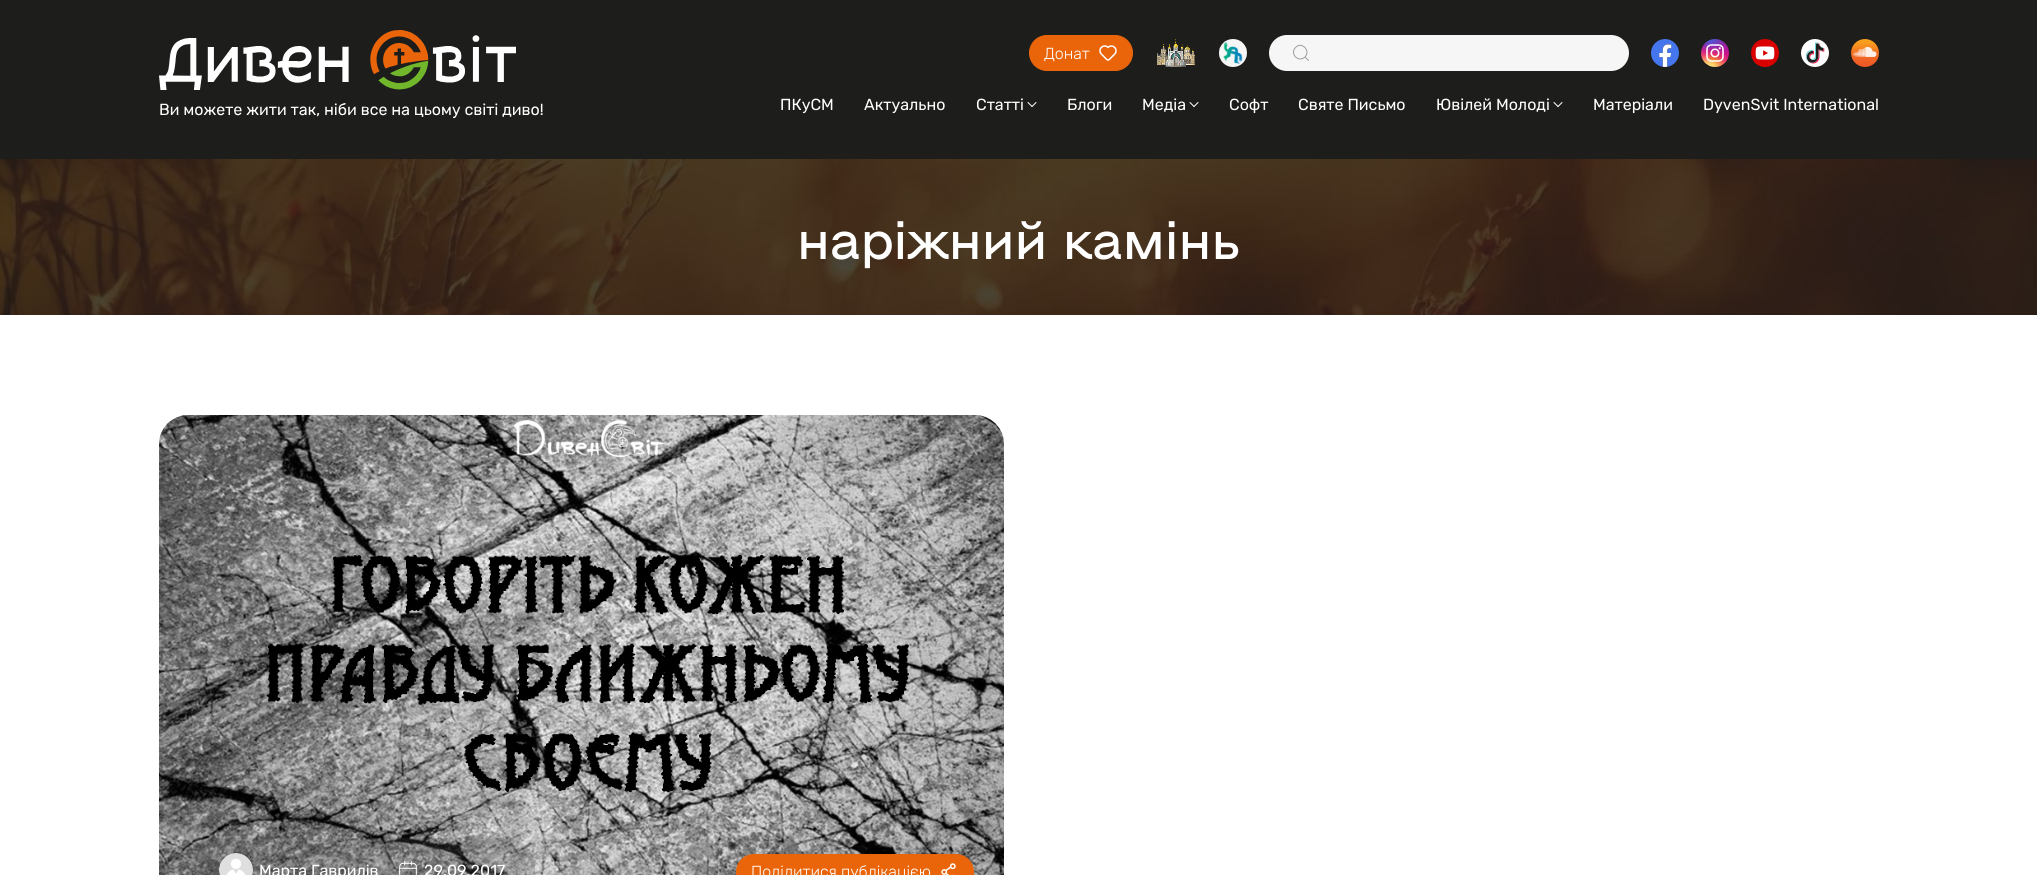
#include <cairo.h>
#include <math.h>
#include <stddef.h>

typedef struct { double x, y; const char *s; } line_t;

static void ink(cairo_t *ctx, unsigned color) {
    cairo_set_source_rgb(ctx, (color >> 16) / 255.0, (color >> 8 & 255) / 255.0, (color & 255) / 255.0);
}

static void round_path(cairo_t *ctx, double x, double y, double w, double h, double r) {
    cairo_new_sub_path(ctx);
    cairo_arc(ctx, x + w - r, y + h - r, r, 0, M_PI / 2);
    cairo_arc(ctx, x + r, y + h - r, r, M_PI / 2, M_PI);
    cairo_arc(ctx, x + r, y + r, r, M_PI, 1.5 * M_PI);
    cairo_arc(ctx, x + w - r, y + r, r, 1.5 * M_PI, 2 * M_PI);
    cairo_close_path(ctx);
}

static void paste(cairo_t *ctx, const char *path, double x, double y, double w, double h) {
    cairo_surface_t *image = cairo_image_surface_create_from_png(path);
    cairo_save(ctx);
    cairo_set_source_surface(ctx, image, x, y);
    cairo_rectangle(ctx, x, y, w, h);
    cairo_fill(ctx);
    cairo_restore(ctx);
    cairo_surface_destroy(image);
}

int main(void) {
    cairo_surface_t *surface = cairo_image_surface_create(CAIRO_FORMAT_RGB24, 2037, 875);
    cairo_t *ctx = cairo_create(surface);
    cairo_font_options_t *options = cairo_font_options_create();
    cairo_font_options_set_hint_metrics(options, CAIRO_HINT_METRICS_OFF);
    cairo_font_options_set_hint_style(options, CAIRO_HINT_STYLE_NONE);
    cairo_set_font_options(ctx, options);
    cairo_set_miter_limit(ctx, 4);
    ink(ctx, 0xFFFFFF);
    cairo_paint(ctx);
    ink(ctx, 0x1D1D1B);
    cairo_rectangle(ctx, 0, 0, 2037, 159);
    cairo_fill(ctx);
    paste(ctx, "media/1.png", 159, 30, 384, 88);
    ink(ctx, 0xEA650A);
    round_path(ctx, 1029.5, 35.5, 103, 35, 17.5);
    cairo_fill_preserve(ctx);
    cairo_set_line_width(ctx, 1);
    cairo_stroke(ctx);
    cairo_select_font_face(ctx, "Rubik Light", CAIRO_FONT_SLANT_NORMAL, CAIRO_FONT_WEIGHT_NORMAL);
    cairo_set_font_size(ctx, 16);
    ink(ctx, 0xFFFFFF);
    cairo_move_to(ctx, 1044, 59);
    cairo_show_text(ctx, "Донат");
    paste(ctx, "media/2.png", 1099, 45, 18, 16);
    paste(ctx, "media/3.png", 1157, 39, 38, 28);
    paste(ctx, "media/4.png", 1219, 39, 28, 28);
    ink(ctx, 0xF6F6F6);
    round_path(ctx, 1269, 35, 360, 36, 18);
    cairo_fill(ctx);
    cairo_new_path(ctx);
    cairo_move_to(ctx, 1308.5, 60.5);
    cairo_line_to(ctx, 1305, 57);
    cairo_move_to(ctx, 1305, 57);
    cairo_curve_to(ctx, 1311, 50.5, 1301.5, 41, 1295.5, 47.5);
    cairo_curve_to(ctx, 1289.5, 54, 1298.5, 63, 1305, 57);
    cairo_close_path(ctx);
    ink(ctx, 0x9E9E9E);
    cairo_set_line_cap(ctx, CAIRO_LINE_CAP_ROUND);
    cairo_set_line_join(ctx, CAIRO_LINE_JOIN_ROUND);
    cairo_stroke(ctx);
    paste(ctx, "media/5.png", 1651, 39, 28, 28);
    paste(ctx, "media/6.png", 1701, 39, 28, 28);
    paste(ctx, "media/7.png", 1751, 39, 28, 28);
    paste(ctx, "media/8.png", 1801, 39, 28, 28);
    paste(ctx, "media/9.png", 1851, 39, 28, 28);
    cairo_select_font_face(ctx, "Rubik", CAIRO_FONT_SLANT_NORMAL, CAIRO_FONT_WEIGHT_NORMAL);
    ink(ctx, 0xFFFFFF);
    {
        static const line_t items[] = {
            {780, 110, "ПКуСМ"},
            {864, 110, "Актуально"},
            {976, 110, "Статті"},
        };
        for (size_t i = 0; i < sizeof items / sizeof *items; i++) {
            cairo_move_to(ctx, items[i].x, items[i].y);
            cairo_show_text(ctx, items[i].s);
        }
    }
    paste(ctx, "media/10.png", 1027, 102, 10, 5);
    cairo_move_to(ctx, 1067, 110);
    cairo_show_text(ctx, "Блоги");
    cairo_move_to(ctx, 1142, 110);
    cairo_show_text(ctx, "Медіа");
    paste(ctx, "media/10.png", 1189, 102, 10, 5);
    {
        static const line_t items[] = {
            {1229, 110, "Софт"},
            {1298, 110, "Святе Письмо"},
            {1436, 110, "Ювілей Молоді"},
        };
        for (size_t i = 0; i < sizeof items / sizeof *items; i++) {
            cairo_move_to(ctx, items[i].x, items[i].y);
            cairo_show_text(ctx, items[i].s);
        }
    }
    paste(ctx, "media/10.png", 1553, 102, 10, 5);
    cairo_move_to(ctx, 1593, 110);
    cairo_show_text(ctx, "Матеріали");
    cairo_move_to(ctx, 1703, 110);
    cairo_show_text(ctx, "DyvenSvit International");
    paste(ctx, "media/11.png", 0, 159, 2037, 156);
    cairo_select_font_face(ctx, "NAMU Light", CAIRO_FONT_SLANT_NORMAL, CAIRO_FONT_WEIGHT_NORMAL);
    cairo_set_font_size(ctx, 54);
    cairo_move_to(ctx, 797, 259);
    cairo_show_text(ctx, "наріжний камінь");
    paste(ctx, "media/12.png", 159, 415, 845, 460);
    cairo_set_source_rgba(ctx, 0.314, 0.314, 0.314, 0.2);
    round_path(ctx, 189, 838, 346, 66, 29);
    cairo_fill(ctx);
    paste(ctx, "media/13.png", 219, 853, 34, 22);
    cairo_select_font_face(ctx, "Rubik", CAIRO_FONT_SLANT_NORMAL, CAIRO_FONT_WEIGHT_NORMAL);
    cairo_set_font_size(ctx, 16);
    ink(ctx, 0xFFFFFF);
    cairo_move_to(ctx, 259, 876);
    cairo_show_text(ctx, "Марта Гаврилів");
    paste(ctx, "media/14.png", 399, 861, 18, 14);
    cairo_move_to(ctx, 424, 876);
    cairo_show_text(ctx, "29.09.2017");
    ink(ctx, 0xEA650A);
    round_path(ctx, 736.5, 854.5, 237, 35, 17.5);
    cairo_fill_preserve(ctx);
    cairo_set_line_cap(ctx, CAIRO_LINE_CAP_BUTT);
    cairo_set_line_join(ctx, CAIRO_LINE_JOIN_MITER);
    cairo_stroke(ctx);
    cairo_select_font_face(ctx, "Rubik Light", CAIRO_FONT_SLANT_NORMAL, CAIRO_FONT_WEIGHT_NORMAL);
    ink(ctx, 0xFFFFFF);
    cairo_move_to(ctx, 751, 877);
    cairo_show_text(ctx, "Поділитися публікацією");
    paste(ctx, "media/15.png", 941, 863, 15, 12);
    cairo_surface_write_to_png(surface, "image.png");
    cairo_font_options_destroy(options);
    cairo_destroy(ctx);
    cairo_surface_destroy(surface);
    return 0;
}
